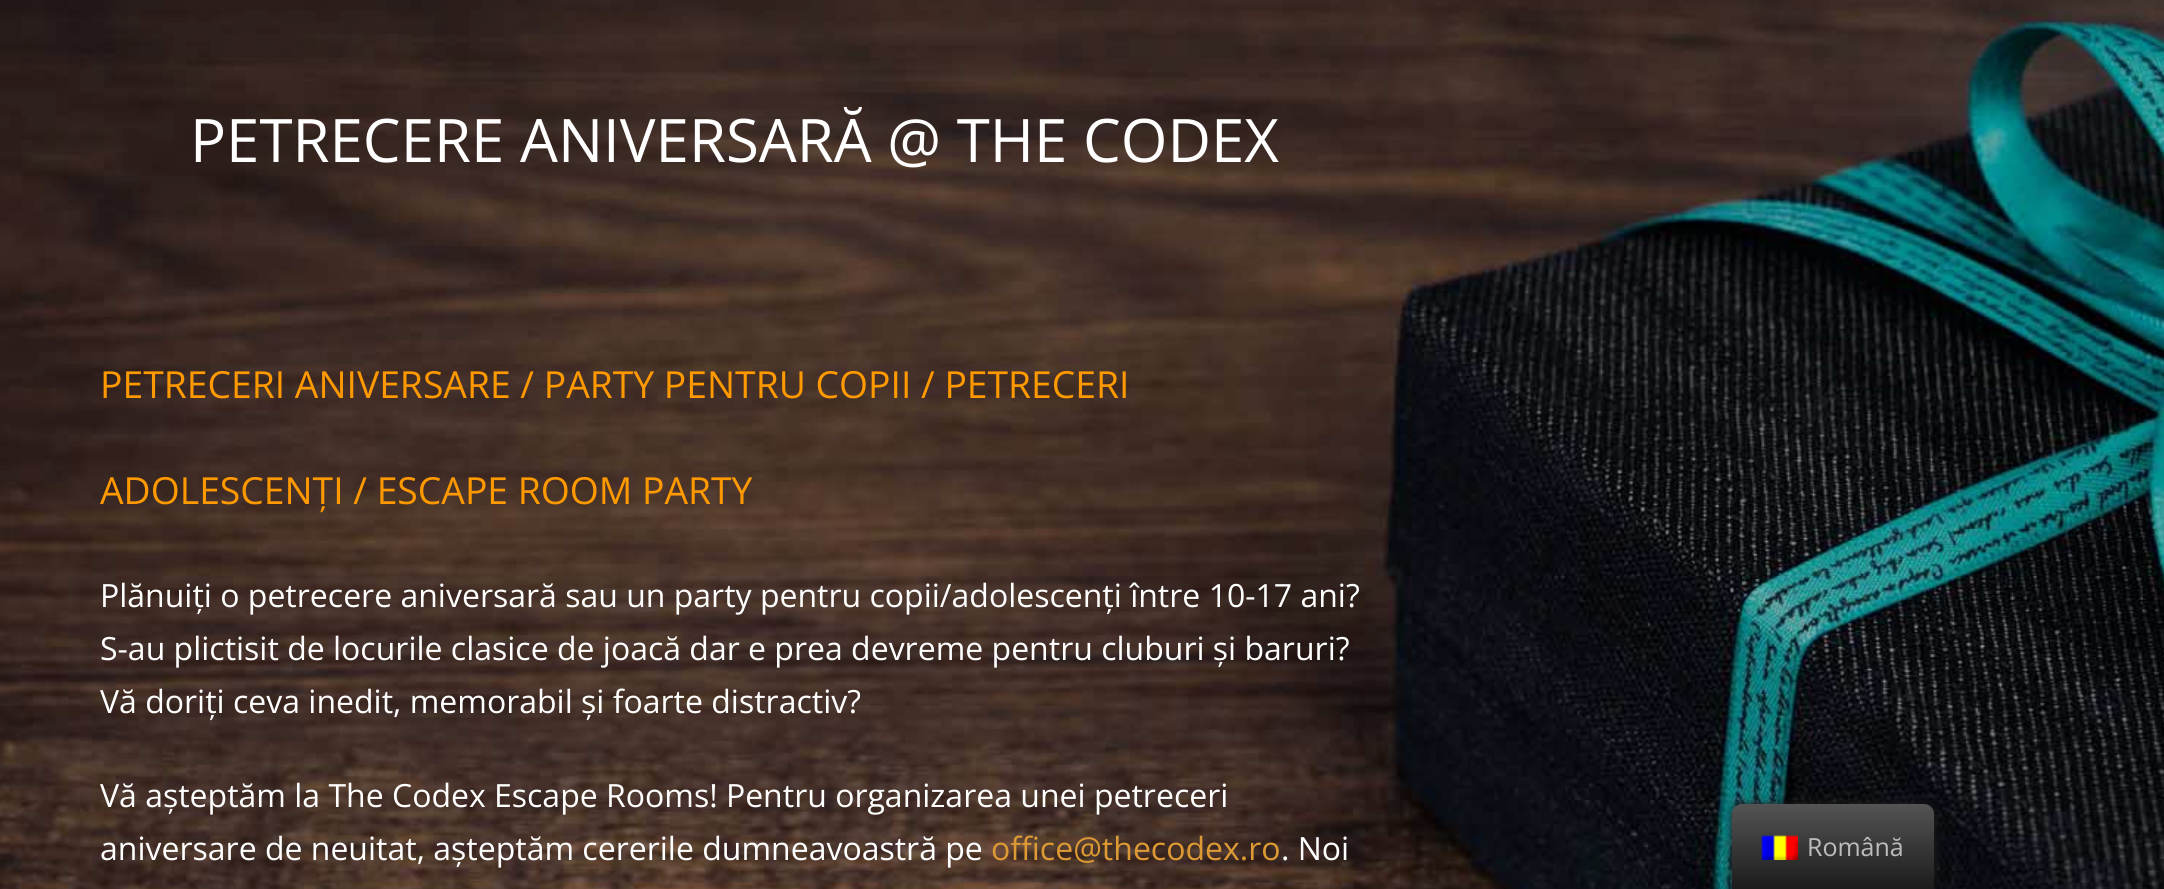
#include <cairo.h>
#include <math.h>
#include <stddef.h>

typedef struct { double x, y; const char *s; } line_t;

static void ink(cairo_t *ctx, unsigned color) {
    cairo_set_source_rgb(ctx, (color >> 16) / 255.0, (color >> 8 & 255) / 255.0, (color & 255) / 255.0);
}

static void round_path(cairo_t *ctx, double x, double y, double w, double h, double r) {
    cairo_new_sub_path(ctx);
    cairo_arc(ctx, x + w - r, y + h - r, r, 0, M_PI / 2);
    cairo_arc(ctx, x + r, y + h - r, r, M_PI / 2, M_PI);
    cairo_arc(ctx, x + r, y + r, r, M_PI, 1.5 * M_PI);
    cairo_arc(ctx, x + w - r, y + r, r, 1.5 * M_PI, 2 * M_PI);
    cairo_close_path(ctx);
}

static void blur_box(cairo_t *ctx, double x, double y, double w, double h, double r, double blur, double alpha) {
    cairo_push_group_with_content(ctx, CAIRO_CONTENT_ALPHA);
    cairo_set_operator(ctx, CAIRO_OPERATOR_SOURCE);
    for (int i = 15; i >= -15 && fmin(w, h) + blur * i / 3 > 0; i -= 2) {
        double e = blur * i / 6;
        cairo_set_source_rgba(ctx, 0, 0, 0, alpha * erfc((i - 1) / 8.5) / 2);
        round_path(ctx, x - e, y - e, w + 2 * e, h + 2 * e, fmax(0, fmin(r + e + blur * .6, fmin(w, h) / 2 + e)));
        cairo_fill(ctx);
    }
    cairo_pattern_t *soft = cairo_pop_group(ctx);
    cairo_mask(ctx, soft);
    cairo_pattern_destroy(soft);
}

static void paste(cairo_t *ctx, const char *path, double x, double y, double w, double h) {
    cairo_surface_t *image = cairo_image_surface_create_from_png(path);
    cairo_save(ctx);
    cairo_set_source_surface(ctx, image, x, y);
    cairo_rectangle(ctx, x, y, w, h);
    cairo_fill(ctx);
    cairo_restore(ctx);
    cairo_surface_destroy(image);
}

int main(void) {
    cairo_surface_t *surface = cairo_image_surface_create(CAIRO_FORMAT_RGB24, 2164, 889);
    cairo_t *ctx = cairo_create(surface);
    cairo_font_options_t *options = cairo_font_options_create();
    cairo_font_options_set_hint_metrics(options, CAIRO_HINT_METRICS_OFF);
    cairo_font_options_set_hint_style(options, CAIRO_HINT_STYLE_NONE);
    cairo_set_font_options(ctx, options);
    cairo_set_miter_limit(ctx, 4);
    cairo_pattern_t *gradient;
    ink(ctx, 0xFFFFFF);
    cairo_paint(ctx);
    paste(ctx, "media/1.png", 0, 0, 2164, 889);
    cairo_select_font_face(ctx, "Open Sans", CAIRO_FONT_SLANT_NORMAL, CAIRO_FONT_WEIGHT_NORMAL);
    cairo_set_font_size(ctx, 60);
    ink(ctx, 0xFFFFFF);
    cairo_move_to(ctx, 190, 162);
    cairo_show_text(ctx, "PETRECERE ANIVERSARĂ @ THE CODEX");
    cairo_set_font_size(ctx, 37.3);
    ink(ctx, 0xFF9900);
    cairo_move_to(ctx, 100, 398);
    cairo_show_text(ctx, "PETRECERI ANIVERSARE / PARTY PENTRU COPII / PETRECERI");
    cairo_move_to(ctx, 100, 504);
    cairo_show_text(ctx, "ADOLESCENȚI / ESCAPE ROOM PARTY");
    cairo_set_font_size(ctx, 32);
    ink(ctx, 0xFFFFFF);
    {
        static const line_t items[] = {
            {100, 607, "Plănuiți o petrecere aniversară sau un party pentru copii/adolescenți între 10-17 ani?"},
            {100, 660, "S-au plictisit de locurile clasice de joacă dar e prea devreme pentru cluburi și baruri?"},
            {100, 713, "Vă doriți ceva inedit, memorabil și foarte distractiv?"},
            {100, 807, "Vă așteptăm la The Codex Escape Rooms! Pentru organizarea unei petreceri"},
            {100, 860, "aniversare de neuitat, așteptăm cererile dumneavoastră pe"},
        };
        for (size_t i = 0; i < sizeof items / sizeof *items; i++) {
            cairo_move_to(ctx, items[i].x, items[i].y);
            cairo_show_text(ctx, items[i].s);
        }
    }
    ink(ctx, 0xDD9933);
    cairo_move_to(ctx, 991, 860);
    cairo_show_text(ctx, "office@thecodex.ro");
    ink(ctx, 0xFFFFFF);
    cairo_move_to(ctx, 1281, 860);
    cairo_show_text(ctx, ". Noi");
    ink(ctx, 0x212121);
    blur_box(ctx, 1732, 804, 202, 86, 10, 5, 1);
    gradient = cairo_pattern_create_linear(1833, 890, 1833, 804);
    cairo_pattern_add_color_stop_rgba(gradient, 0, 0.106, 0.106, 0.106, 1);
    cairo_pattern_add_color_stop_rgba(gradient, 1, 0.329, 0.329, 0.329, 1);
    cairo_set_source(ctx, gradient);
    cairo_pattern_destroy(gradient);
    cairo_new_path(ctx);
    cairo_move_to(ctx, 1742, 804);
    cairo_line_to(ctx, 1924, 804);
    cairo_curve_to(ctx, 1929.5, 804, 1934, 808.5, 1934, 814);
    cairo_line_to(ctx, 1934, 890);
    cairo_line_to(ctx, 1732, 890);
    cairo_line_to(ctx, 1732, 814);
    cairo_curve_to(ctx, 1732, 808.5, 1736.5, 804, 1742, 804);
    cairo_close_path(ctx);
    cairo_fill(ctx);
    paste(ctx, "media/2.png", 1761, 835, 37, 25);
    cairo_set_font_size(ctx, 25);
    ink(ctx, 0xBDBDBD);
    cairo_move_to(ctx, 1807, 856);
    cairo_show_text(ctx, "Română");
    cairo_surface_write_to_png(surface, "image.png");
    cairo_font_options_destroy(options);
    cairo_destroy(ctx);
    cairo_surface_destroy(surface);
    return 0;
}
